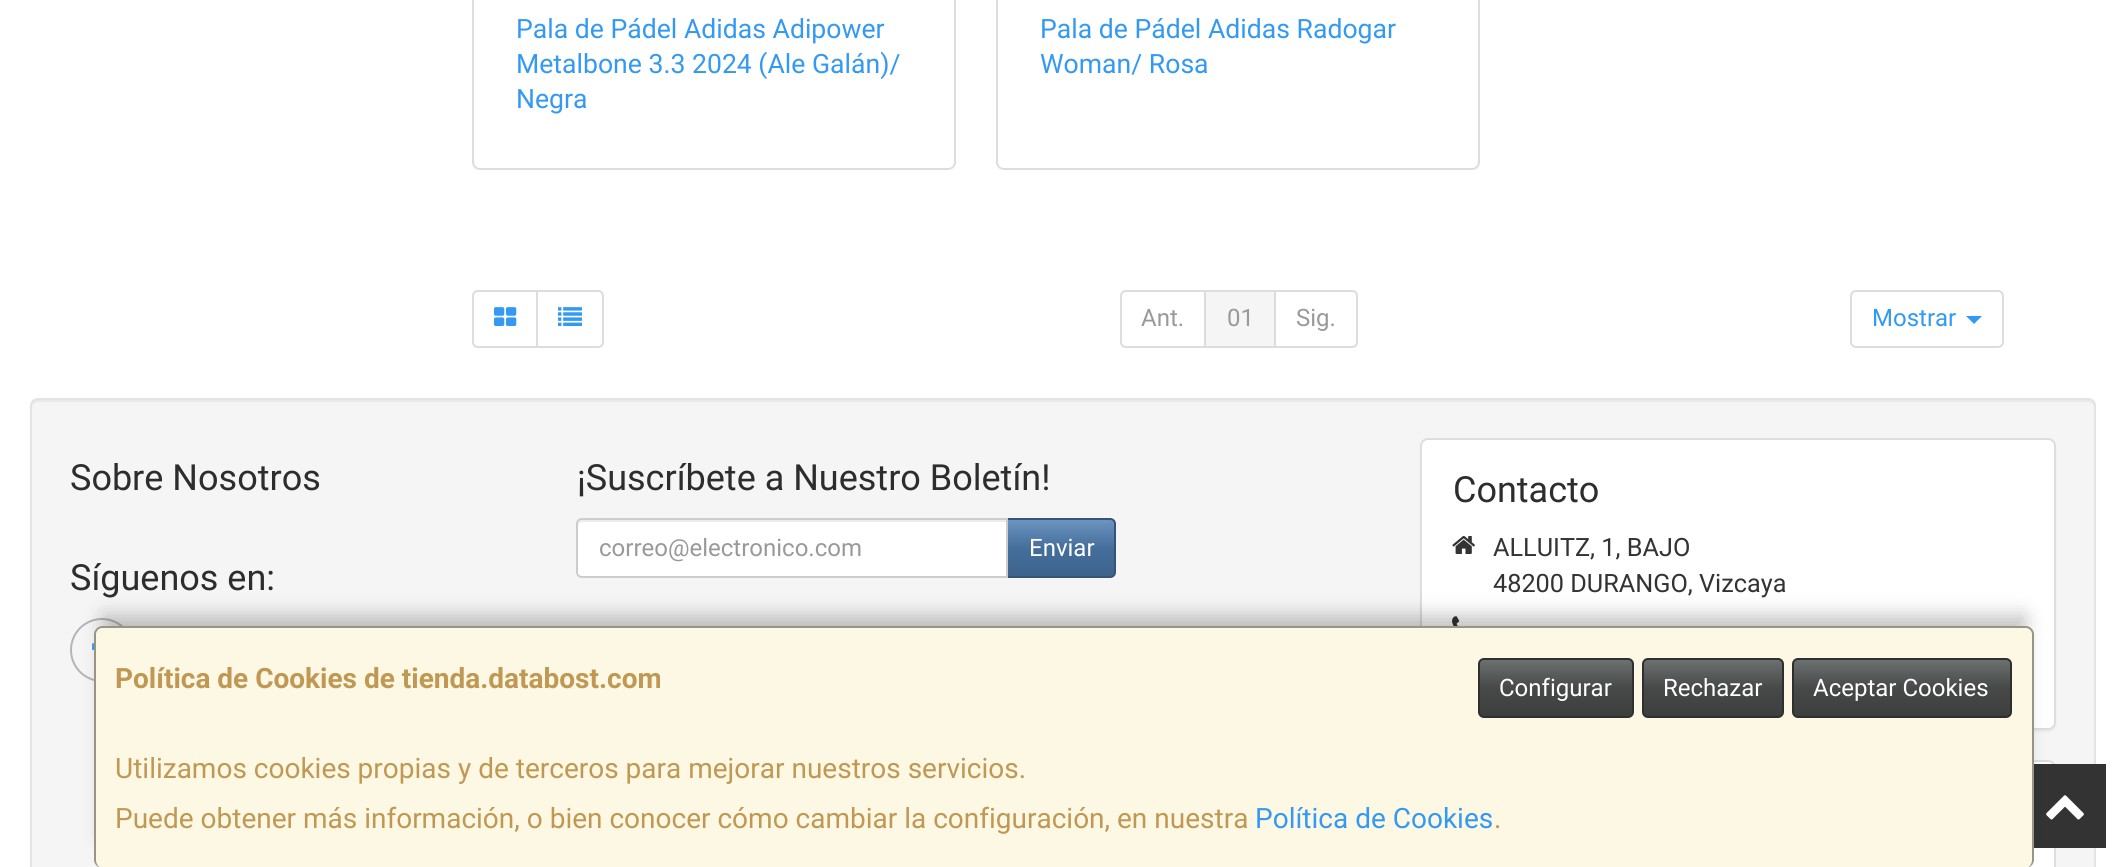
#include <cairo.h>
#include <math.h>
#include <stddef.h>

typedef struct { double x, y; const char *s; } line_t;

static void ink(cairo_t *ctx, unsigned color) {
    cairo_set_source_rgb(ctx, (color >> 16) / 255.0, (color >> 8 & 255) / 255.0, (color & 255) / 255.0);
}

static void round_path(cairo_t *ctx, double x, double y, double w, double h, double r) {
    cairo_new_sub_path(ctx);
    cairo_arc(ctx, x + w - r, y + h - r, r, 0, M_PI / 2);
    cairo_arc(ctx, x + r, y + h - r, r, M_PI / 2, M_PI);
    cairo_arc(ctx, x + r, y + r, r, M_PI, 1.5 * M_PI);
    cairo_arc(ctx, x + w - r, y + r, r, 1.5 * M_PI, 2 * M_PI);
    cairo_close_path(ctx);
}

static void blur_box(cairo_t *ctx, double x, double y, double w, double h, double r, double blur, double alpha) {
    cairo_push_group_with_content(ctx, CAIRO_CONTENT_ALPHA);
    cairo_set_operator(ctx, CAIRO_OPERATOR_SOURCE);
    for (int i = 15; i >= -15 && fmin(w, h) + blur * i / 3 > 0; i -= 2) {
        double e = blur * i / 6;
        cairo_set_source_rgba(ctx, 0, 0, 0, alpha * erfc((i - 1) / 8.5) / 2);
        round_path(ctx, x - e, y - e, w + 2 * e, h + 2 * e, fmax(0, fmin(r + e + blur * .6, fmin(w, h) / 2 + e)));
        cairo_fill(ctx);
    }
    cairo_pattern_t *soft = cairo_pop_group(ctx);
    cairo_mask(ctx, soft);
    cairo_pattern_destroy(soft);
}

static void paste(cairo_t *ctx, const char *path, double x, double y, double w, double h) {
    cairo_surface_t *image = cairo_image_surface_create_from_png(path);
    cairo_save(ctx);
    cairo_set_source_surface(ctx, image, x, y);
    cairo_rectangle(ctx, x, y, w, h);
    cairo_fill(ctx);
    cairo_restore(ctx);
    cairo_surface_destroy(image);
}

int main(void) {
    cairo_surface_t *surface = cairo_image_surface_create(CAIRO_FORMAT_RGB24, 2125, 867);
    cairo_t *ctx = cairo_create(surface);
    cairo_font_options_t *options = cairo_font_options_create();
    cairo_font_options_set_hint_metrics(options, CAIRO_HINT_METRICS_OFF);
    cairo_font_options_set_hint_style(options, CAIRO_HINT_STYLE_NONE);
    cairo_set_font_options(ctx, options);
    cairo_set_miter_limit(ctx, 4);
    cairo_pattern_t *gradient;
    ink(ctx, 0xFFFFFF);
    cairo_paint(ctx);
    round_path(ctx, 473, -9, 482, 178, 7);
    ink(ctx, 0xDDDDDD);
    cairo_stroke(ctx);
    cairo_select_font_face(ctx, "Roboto", CAIRO_FONT_SLANT_NORMAL, CAIRO_FONT_WEIGHT_NORMAL);
    cairo_set_font_size(ctx, 26.6);
    ink(ctx, 0x3399F3);
    {
        static const line_t items[] = {
            {516, 38, "Pala de Pádel Adidas Adipower"},
            {516, 73, "Metalbone 3.3 2024 (Ale Galán)/"},
            {516, 108, "Negra"},
        };
        for (size_t i = 0; i < sizeof items / sizeof *items; i++) {
            cairo_move_to(ctx, items[i].x, items[i].y);
            cairo_show_text(ctx, items[i].s);
        }
    }
    round_path(ctx, 997, -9, 482, 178, 7);
    ink(ctx, 0xDDDDDD);
    cairo_stroke(ctx);
    ink(ctx, 0x3399F3);
    cairo_move_to(ctx, 1040, 38);
    cairo_show_text(ctx, "Pala de Pádel Adidas Radogar");
    cairo_move_to(ctx, 1040, 73);
    cairo_show_text(ctx, "Woman/ Rosa");
    cairo_new_path(ctx);
    cairo_move_to(ctx, 478, 291);
    cairo_line_to(ctx, 537, 291);
    cairo_line_to(ctx, 537, 347);
    cairo_line_to(ctx, 478, 347);
    cairo_curve_to(ctx, 475, 347, 473, 345, 473, 342);
    cairo_line_to(ctx, 473, 296);
    cairo_curve_to(ctx, 473, 293, 475, 291, 478, 291);
    cairo_close_path(ctx);
    ink(ctx, 0xDDDDDD);
    cairo_stroke(ctx);
    paste(ctx, "media/1.png", 494, 307, 23, 19);
    ink(ctx, 0xFFFFFF);
    cairo_new_path(ctx);
    cairo_move_to(ctx, 537, 291);
    cairo_line_to(ctx, 598, 291);
    cairo_curve_to(ctx, 601, 291, 603, 293, 603, 296);
    cairo_line_to(ctx, 603, 342);
    cairo_curve_to(ctx, 603, 345, 601, 347, 598, 347);
    cairo_line_to(ctx, 537, 347);
    cairo_close_path(ctx);
    cairo_fill_preserve(ctx);
    ink(ctx, 0xDDDDDD);
    cairo_stroke(ctx);
    paste(ctx, "media/2.png", 558, 307, 24, 19);
    cairo_new_path(ctx);
    cairo_move_to(ctx, 1126, 291);
    cairo_line_to(ctx, 1205, 291);
    cairo_line_to(ctx, 1205, 347);
    cairo_line_to(ctx, 1126, 347);
    cairo_curve_to(ctx, 1123, 347, 1121, 345, 1121, 342);
    cairo_line_to(ctx, 1121, 296);
    cairo_curve_to(ctx, 1121, 293, 1123, 291, 1126, 291);
    cairo_close_path(ctx);
    cairo_stroke(ctx);
    cairo_set_font_size(ctx, 24);
    ink(ctx, 0x999999);
    cairo_move_to(ctx, 1141, 326);
    cairo_show_text(ctx, "Ant.");
    cairo_new_path(ctx);
    cairo_move_to(ctx, 1275, 291);
    cairo_line_to(ctx, 1352, 291);
    cairo_curve_to(ctx, 1355, 291, 1357, 293, 1357, 296);
    cairo_line_to(ctx, 1357, 342);
    cairo_curve_to(ctx, 1357, 345, 1355, 347, 1352, 347);
    cairo_line_to(ctx, 1275, 347);
    cairo_close_path(ctx);
    ink(ctx, 0xDDDDDD);
    cairo_stroke(ctx);
    ink(ctx, 0xF5F5F5);
    cairo_rectangle(ctx, 1205, 291, 70, 56);
    cairo_fill_preserve(ctx);
    ink(ctx, 0xDDDDDD);
    cairo_stroke(ctx);
    ink(ctx, 0x999999);
    cairo_move_to(ctx, 1227, 326);
    cairo_show_text(ctx, "01");
    cairo_move_to(ctx, 1296, 326);
    cairo_show_text(ctx, "Sig.");
    round_path(ctx, 1851, 291, 152, 56, 5);
    ink(ctx, 0xDDDDDD);
    cairo_stroke(ctx);
    ink(ctx, 0x3399F3);
    cairo_move_to(ctx, 1872, 326);
    cairo_show_text(ctx, "Mostrar");
    cairo_new_path(ctx);
    cairo_move_to(ctx, 1966, 316);
    cairo_line_to(ctx, 1982, 316);
    cairo_line_to(ctx, 1974, 324);
    cairo_close_path(ctx);
    cairo_fill(ctx);
    ink(ctx, 0xF5F5F5);
    round_path(ctx, 30, 398, 2066, 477, 8);
    cairo_fill(ctx);
    ink(ctx, 0xE9E9E9);
    cairo_new_path(ctx);
    cairo_move_to(ctx, 38, 402);
    cairo_line_to(ctx, 2088, 402);
    cairo_curve_to(ctx, 2091, 402, 2094, 405, 2094, 408);
    cairo_curve_to(ctx, 2094, 404, 2093, 400, 2088, 400);
    cairo_line_to(ctx, 38, 400);
    cairo_curve_to(ctx, 33, 400, 32, 404, 32, 408);
    cairo_curve_to(ctx, 32, 405, 35, 402, 38, 402);
    cairo_close_path(ctx);
    cairo_fill(ctx);
    round_path(ctx, 31, 399, 2064, 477, 7);
    ink(ctx, 0xE3E3E3);
    cairo_stroke(ctx);
    cairo_set_font_size(ctx, 36);
    ink(ctx, 0x2D2D2D);
    cairo_move_to(ctx, 70, 490);
    cairo_show_text(ctx, "Sobre Nosotros");
    cairo_move_to(ctx, 70, 590);
    cairo_show_text(ctx, "Síguenos en:");
    cairo_new_path(ctx);
    cairo_arc(ctx, 102, 650, 31, 0, 2 * M_PI);
    ink(ctx, 0xB5B5B5);
    cairo_stroke(ctx);
    paste(ctx, "media/3.png", 92, 643, 2, 7);
    ink(ctx, 0x2D2D2D);
    cairo_move_to(ctx, 577, 490);
    cairo_show_text(ctx, "¡Suscríbete a Nuestro Boletín!");
    gradient = cairo_pattern_create_linear(1061, 520, 1061, 576);
    cairo_pattern_add_color_stop_rgba(gradient, 0, 0.427, 0.58, 0.749, 1);
    cairo_pattern_add_color_stop_rgba(gradient, 0.5, 0.267, 0.431, 0.608, 1);
    cairo_pattern_add_color_stop_rgba(gradient, 1, 0.243, 0.392, 0.553, 1);
    cairo_set_source(ctx, gradient);
    cairo_pattern_destroy(gradient);
    cairo_rectangle(ctx, 1008, 520, 106, 56);
    cairo_fill(ctx);
    cairo_new_path(ctx);
    cairo_move_to(ctx, 1007, 519);
    cairo_line_to(ctx, 1110, 519);
    cairo_curve_to(ctx, 1113, 519, 1115, 521, 1115, 524);
    cairo_line_to(ctx, 1115, 572);
    cairo_curve_to(ctx, 1115, 575, 1113, 577, 1110, 577);
    cairo_line_to(ctx, 1007, 577);
    cairo_close_path(ctx);
    ink(ctx, 0x345578);
    cairo_stroke(ctx);
    ink(ctx, 0xFFFFFF);
    cairo_new_path(ctx);
    cairo_move_to(ctx, 582, 518);
    cairo_line_to(ctx, 1008, 518);
    cairo_line_to(ctx, 1008, 578);
    cairo_line_to(ctx, 582, 578);
    cairo_curve_to(ctx, 578.5, 578, 576, 575.5, 576, 572);
    cairo_line_to(ctx, 576, 524);
    cairo_curve_to(ctx, 576, 520.5, 578.5, 518, 582, 518);
    cairo_close_path(ctx);
    cairo_fill(ctx);
    ink(ctx, 0xECECEC);
    cairo_new_path(ctx);
    cairo_move_to(ctx, 582, 522);
    cairo_line_to(ctx, 1006, 522);
    cairo_line_to(ctx, 1006, 520);
    cairo_line_to(ctx, 582, 520);
    cairo_curve_to(ctx, 580, 520, 578, 522, 578, 524);
    cairo_line_to(ctx, 578, 526);
    cairo_curve_to(ctx, 578, 524, 580, 522, 582, 522);
    cairo_close_path(ctx);
    cairo_fill(ctx);
    cairo_new_path(ctx);
    cairo_move_to(ctx, 582, 519);
    cairo_line_to(ctx, 1007, 519);
    cairo_line_to(ctx, 1007, 577);
    cairo_line_to(ctx, 582, 577);
    cairo_curve_to(ctx, 579, 577, 577, 575, 577, 572);
    cairo_line_to(ctx, 577, 524);
    cairo_curve_to(ctx, 577, 521, 579, 519, 582, 519);
    cairo_close_path(ctx);
    ink(ctx, 0xCCCCCC);
    cairo_stroke(ctx);
    cairo_set_font_size(ctx, 24);
    ink(ctx, 0x999999);
    cairo_move_to(ctx, 599, 556);
    cairo_show_text(ctx, "correo@electronico.com");
    ink(ctx, 0xFFFFFF);
    cairo_move_to(ctx, 1029, 556);
    cairo_show_text(ctx, "Enviar");
    ink(ctx, 0x000000);
    blur_box(ctx, 1420, 440, 636, 292, 8, 1, 0.05);
    ink(ctx, 0xFFFFFF);
    round_path(ctx, 1421, 439, 634, 290, 7);
    cairo_fill_preserve(ctx);
    ink(ctx, 0xDDDDDD);
    cairo_stroke(ctx);
    cairo_set_font_size(ctx, 36);
    ink(ctx, 0x2D2D2D);
    cairo_move_to(ctx, 1453, 502);
    cairo_show_text(ctx, "Contacto");
    paste(ctx, "media/4.png", 1452, 536, 23, 18);
    cairo_set_font_size(ctx, 25.25);
    ink(ctx, 0x333333);
    cairo_move_to(ctx, 1493, 556);
    cairo_show_text(ctx, "ALLUITZ, 1, BAJO");
    cairo_move_to(ctx, 1493, 592);
    cairo_show_text(ctx, "48200 DURANGO, Vizcaya");
    paste(ctx, "media/5.png", 1452, 616, 8, 10);
    ink(ctx, 0xFFFFFF);
    round_path(ctx, 1421, 761, 634, 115, 7);
    cairo_fill_preserve(ctx);
    ink(ctx, 0xDDDDDD);
    cairo_stroke(ctx);
    ink(ctx, 0x333333);
    cairo_rectangle(ctx, 2034, 764, 72, 84);
    cairo_fill(ctx);
    paste(ctx, "media/6.png", 2046, 795, 38, 25);
    ink(ctx, 0x000000);
    blur_box(ctx, 104, 616, 1920, 222, 0, 10, 0.25);
    ink(ctx, 0xFCF8E3);
    round_path(ctx, 94, 626, 1940, 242, 8);
    cairo_fill(ctx);
    cairo_set_source_rgba(ctx, 0, 0, 0, 0.4);
    cairo_set_fill_rule(ctx, CAIRO_FILL_RULE_EVEN_ODD);
    cairo_new_path(ctx);
    cairo_move_to(ctx, 102, 626);
    cairo_line_to(ctx, 2026, 626);
    cairo_curve_to(ctx, 2030, 626, 2034, 630, 2034, 634);
    cairo_line_to(ctx, 2034, 860);
    cairo_curve_to(ctx, 2034, 864, 2030, 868, 2026, 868);
    cairo_line_to(ctx, 102, 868);
    cairo_curve_to(ctx, 98, 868, 94, 864, 94, 860);
    cairo_line_to(ctx, 94, 634);
    cairo_curve_to(ctx, 94, 630, 98, 626, 102, 626);
    cairo_close_path(ctx);
    cairo_move_to(ctx, 102, 628);
    cairo_line_to(ctx, 2026, 628);
    cairo_curve_to(ctx, 2029, 628, 2032, 631, 2032, 634);
    cairo_line_to(ctx, 2032, 860);
    cairo_curve_to(ctx, 2032, 864, 2029, 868, 2026, 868);
    cairo_line_to(ctx, 102, 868);
    cairo_curve_to(ctx, 99, 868, 96, 864, 96, 860);
    cairo_line_to(ctx, 96, 634);
    cairo_curve_to(ctx, 96, 631, 99, 628, 102, 628);
    cairo_close_path(ctx);
    cairo_fill(ctx);
    cairo_select_font_face(ctx, "Roboto", CAIRO_FONT_SLANT_NORMAL, CAIRO_FONT_WEIGHT_BOLD);
    cairo_set_font_size(ctx, 28);
    ink(ctx, 0xC09853);
    cairo_move_to(ctx, 115, 688);
    cairo_show_text(ctx, "Política de Cookies de tienda.databost.com");
    gradient = cairo_pattern_create_linear(1556, 660, 1556, 716);
    cairo_pattern_add_color_stop_rgba(gradient, 0, 0.427, 0.439, 0.439, 1);
    cairo_pattern_add_color_stop_rgba(gradient, 0.5, 0.278, 0.286, 0.286, 1);
    cairo_pattern_add_color_stop_rgba(gradient, 1, 0.239, 0.247, 0.247, 1);
    cairo_set_source(ctx, gradient);
    cairo_pattern_destroy(gradient);
    cairo_rectangle(ctx, 1480, 660, 152, 56);
    cairo_fill(ctx);
    round_path(ctx, 1479, 659, 154, 58, 5);
    ink(ctx, 0x2E2F2F);
    cairo_stroke(ctx);
    cairo_select_font_face(ctx, "Roboto", CAIRO_FONT_SLANT_NORMAL, CAIRO_FONT_WEIGHT_NORMAL);
    cairo_set_font_size(ctx, 24);
    ink(ctx, 0xFFFFFF);
    cairo_move_to(ctx, 1499, 696);
    cairo_show_text(ctx, "Configurar");
    gradient = cairo_pattern_create_linear(1713, 660, 1713, 716);
    cairo_pattern_add_color_stop_rgba(gradient, 0, 0.427, 0.439, 0.439, 1);
    cairo_pattern_add_color_stop_rgba(gradient, 0.5, 0.278, 0.286, 0.286, 1);
    cairo_pattern_add_color_stop_rgba(gradient, 1, 0.239, 0.247, 0.247, 1);
    cairo_set_source(ctx, gradient);
    cairo_pattern_destroy(gradient);
    cairo_rectangle(ctx, 1644, 660, 138, 56);
    cairo_fill(ctx);
    round_path(ctx, 1643, 659, 140, 58, 5);
    ink(ctx, 0x2E2F2F);
    cairo_stroke(ctx);
    ink(ctx, 0xFFFFFF);
    cairo_move_to(ctx, 1663, 696);
    cairo_show_text(ctx, "Rechazar");
    gradient = cairo_pattern_create_linear(1902, 660, 1902, 716);
    cairo_pattern_add_color_stop_rgba(gradient, 0, 0.427, 0.439, 0.439, 1);
    cairo_pattern_add_color_stop_rgba(gradient, 0.5, 0.278, 0.286, 0.286, 1);
    cairo_pattern_add_color_stop_rgba(gradient, 1, 0.239, 0.247, 0.247, 1);
    cairo_set_source(ctx, gradient);
    cairo_pattern_destroy(gradient);
    cairo_rectangle(ctx, 1794, 660, 216, 56);
    cairo_fill(ctx);
    round_path(ctx, 1793, 659, 218, 58, 5);
    ink(ctx, 0x2E2F2F);
    cairo_stroke(ctx);
    ink(ctx, 0xFFFFFF);
    cairo_move_to(ctx, 1813, 696);
    cairo_show_text(ctx, "Aceptar Cookies");
    cairo_set_font_size(ctx, 28);
    ink(ctx, 0xC09853);
    cairo_move_to(ctx, 115, 778);
    cairo_show_text(ctx, "Utilizamos cookies propias y de terceros para mejorar nuestros servicios.");
    cairo_move_to(ctx, 115, 828);
    cairo_show_text(ctx, "Puede obtener más información, o bien conocer cómo cambiar la configuración, en nuestra");
    ink(ctx, 0x3399F3);
    cairo_move_to(ctx, 1255, 828);
    cairo_show_text(ctx, "Política de Cookies");
    ink(ctx, 0xC09853);
    cairo_move_to(ctx, 1494, 828);
    cairo_show_text(ctx, ".");
    cairo_surface_write_to_png(surface, "image.png");
    cairo_font_options_destroy(options);
    cairo_destroy(ctx);
    cairo_surface_destroy(surface);
    return 0;
}
